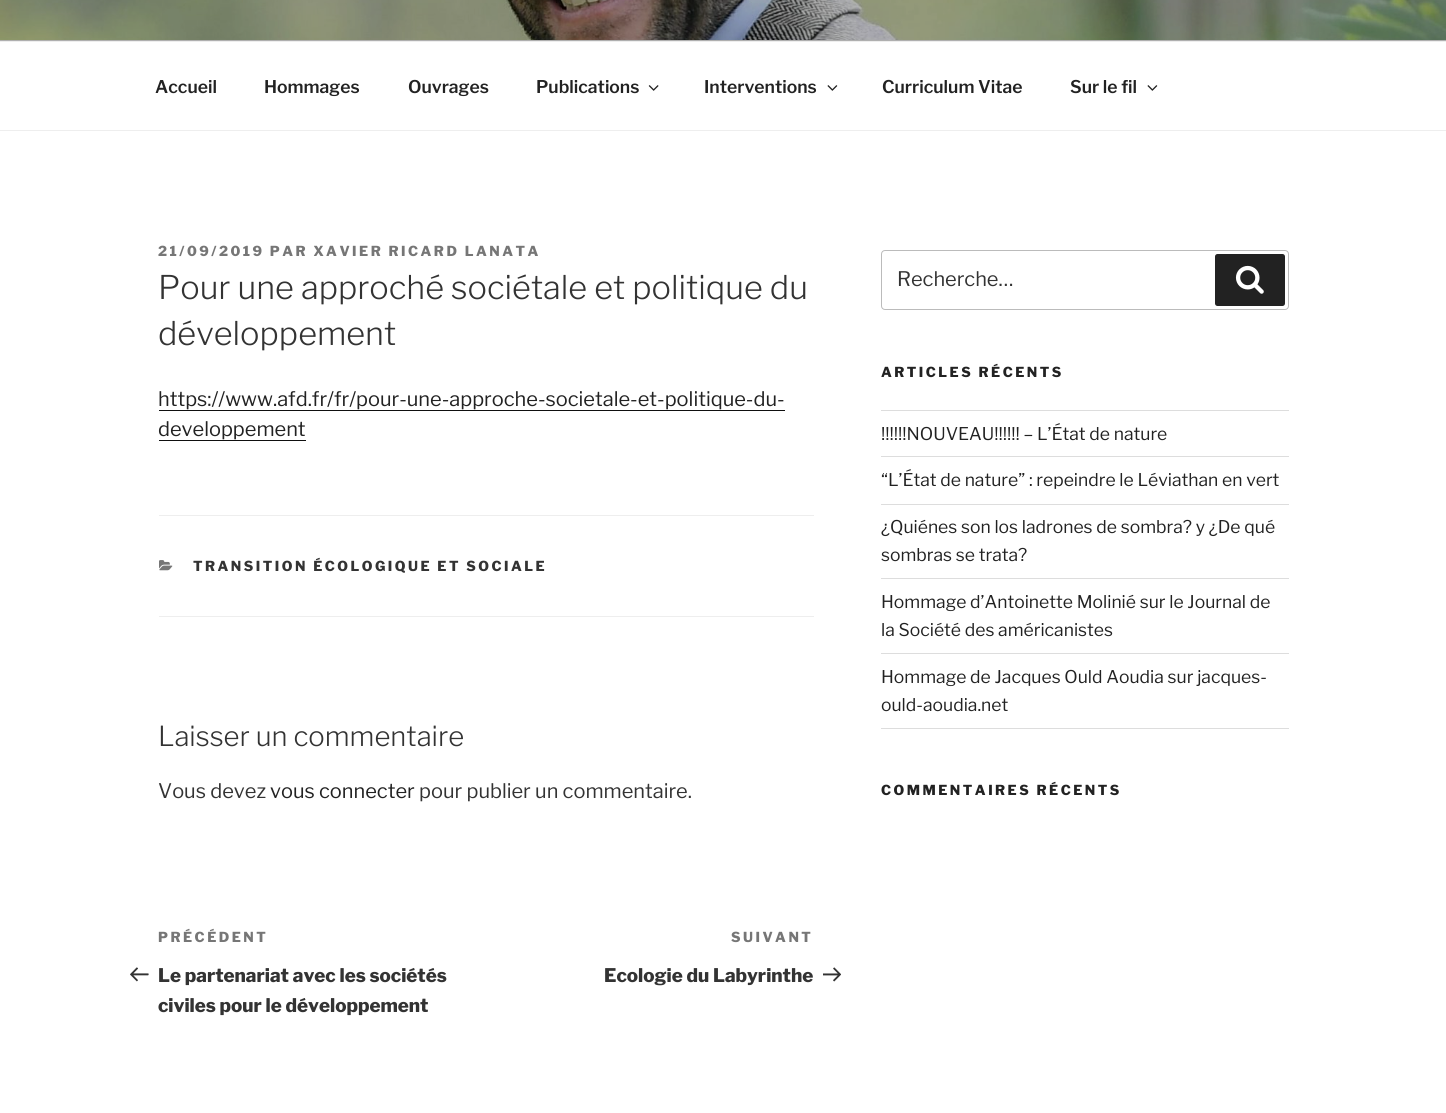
#include <cairo.h>
#include <math.h>
#include <stddef.h>

typedef struct { double x, y; const char *s; } line_t;
typedef struct { double x, y, w, h; unsigned color; } box_t;

static void ink(cairo_t *ctx, unsigned color) {
    cairo_set_source_rgb(ctx, (color >> 16) / 255.0, (color >> 8 & 255) / 255.0, (color & 255) / 255.0);
}

static void write_spaced(cairo_t *ctx, double x, double y, const char *s, double letter, double word) {
    cairo_move_to(ctx, x, y);
    while (*s) {
        char ch[5] = {0};
        int n = 0;
        do ch[n++] = *s++; while ((*s & 0xC0) == 0x80);
        cairo_show_text(ctx, ch);
        cairo_rel_move_to(ctx, letter + word * (*ch == ' '), 0);
    }
}

static void round_path(cairo_t *ctx, double x, double y, double w, double h, double r) {
    cairo_new_sub_path(ctx);
    cairo_arc(ctx, x + w - r, y + h - r, r, 0, M_PI / 2);
    cairo_arc(ctx, x + r, y + h - r, r, M_PI / 2, M_PI);
    cairo_arc(ctx, x + r, y + r, r, M_PI, 1.5 * M_PI);
    cairo_arc(ctx, x + w - r, y + r, r, 1.5 * M_PI, 2 * M_PI);
    cairo_close_path(ctx);
}

static void paste(cairo_t *ctx, const char *path, double x, double y, double w, double h) {
    cairo_surface_t *image = cairo_image_surface_create_from_png(path);
    cairo_save(ctx);
    cairo_set_source_surface(ctx, image, x, y);
    cairo_rectangle(ctx, x, y, w, h);
    cairo_fill(ctx);
    cairo_restore(ctx);
    cairo_surface_destroy(image);
}

int main(void) {
    cairo_surface_t *surface = cairo_image_surface_create(CAIRO_FORMAT_RGB24, 1446, 1113);
    cairo_t *ctx = cairo_create(surface);
    cairo_font_options_t *options = cairo_font_options_create();
    cairo_font_options_set_hint_metrics(options, CAIRO_HINT_METRICS_OFF);
    cairo_font_options_set_hint_style(options, CAIRO_HINT_STYLE_NONE);
    cairo_set_font_options(ctx, options);
    cairo_set_miter_limit(ctx, 4);
    cairo_pattern_t *gradient;
    ink(ctx, 0xFFFFFF);
    cairo_paint(ctx);
    ink(ctx, 0xFAFAFA);
    cairo_rectangle(ctx, 0, 40, 1446, 1);
    cairo_fill(ctx);
    paste(ctx, "media/1.png", 0, 0, 1446, 40);
    gradient = cairo_pattern_create_linear(723, -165, 723, 41);
    cairo_pattern_add_color_stop_rgba(gradient, 0, 0, 0, 0, 0);
    cairo_pattern_add_color_stop_rgba(gradient, 0.75, 0, 0, 0, 0.3);
    cairo_pattern_add_color_stop_rgba(gradient, 1, 0, 0, 0, 0.3);
    cairo_set_source(ctx, gradient);
    cairo_pattern_destroy(gradient);
    cairo_rectangle(ctx, 0, 0, 1446, 41);
    cairo_fill(ctx);
    ink(ctx, 0xEEEEEE);
    cairo_rectangle(ctx, 0, 41, 1446, 1);
    cairo_fill(ctx);
    cairo_rectangle(ctx, 0, 130, 1446, 1);
    cairo_fill(ctx);
    cairo_select_font_face(ctx, "Libre Franklin SemiBold", CAIRO_FONT_SLANT_NORMAL, CAIRO_FONT_WEIGHT_NORMAL);
    cairo_set_font_size(ctx, 17.5);
    ink(ctx, 0x222222);
    {
        static const line_t items[] = {
            {155, 93, "Accueil"},
            {264, 93, "Hommages"},
            {408, 93, "Ouvrages"},
            {536, 93, "Publications"},
        };
        for (size_t i = 0; i < sizeof items / sizeof *items; i++) {
            cairo_move_to(ctx, items[i].x, items[i].y);
            cairo_show_text(ctx, items[i].s);
        }
    }
    paste(ctx, "media/2.png", 648, 85, 11, 6);
    cairo_move_to(ctx, 704, 93);
    cairo_show_text(ctx, "Interventions");
    paste(ctx, "media/3.png", 827, 85, 11, 6);
    cairo_move_to(ctx, 882, 93);
    cairo_show_text(ctx, "Curriculum Vitae");
    cairo_move_to(ctx, 1070, 93);
    cairo_show_text(ctx, "Sur le fil");
    paste(ctx, "media/3.png", 1147, 85, 11, 6);
    cairo_select_font_face(ctx, "Libre Franklin ExtraBold", CAIRO_FONT_SLANT_NORMAL, CAIRO_FONT_WEIGHT_NORMAL);
    cairo_set_font_size(ctx, 13.75);
    ink(ctx, 0x767676);
    write_spaced(ctx, 158, 256, "21/09/2019 PAR XAVIER RICARD LANATA", 2.5, 0);
    cairo_select_font_face(ctx, "Libre Franklin Light", CAIRO_FONT_SLANT_NORMAL, CAIRO_FONT_WEIGHT_NORMAL);
    cairo_set_font_size(ctx, 32.5);
    ink(ctx, 0x333333);
    cairo_move_to(ctx, 158, 299);
    cairo_show_text(ctx, "Pour une approché sociétale et politique du");
    cairo_move_to(ctx, 158, 345);
    cairo_show_text(ctx, "développement");
    cairo_select_font_face(ctx, "Libre Franklin", CAIRO_FONT_SLANT_NORMAL, CAIRO_FONT_WEIGHT_NORMAL);
    cairo_set_font_size(ctx, 20);
    ink(ctx, 0x222222);
    cairo_move_to(ctx, 158, 406);
    cairo_show_text(ctx, "https://www.afd.fr/fr/pour-une-approche-societale-et-politique-du-");
    ink(ctx, 0x0F0F0F);
    cairo_rectangle(ctx, 159, 410, 626, 1);
    cairo_fill(ctx);
    ink(ctx, 0x222222);
    cairo_move_to(ctx, 158, 436);
    cairo_show_text(ctx, "developpement");
    {
        static const box_t items[] = {
            {159, 440, 147, 1, 0x0F0F0F},
            {159, 515, 655, 1, 0xEEEEEE},
            {159, 616, 655, 1, 0xEEEEEE},
        };
        for (size_t i = 0; i < sizeof items / sizeof *items; i++) {
            ink(ctx, items[i].color);
            cairo_rectangle(ctx, items[i].x, items[i].y, items[i].w, items[i].h);
            cairo_fill(ctx);
        }
    }
    paste(ctx, "media/4.png", 159, 560, 14, 11);
    cairo_select_font_face(ctx, "Libre Franklin ExtraBold", CAIRO_FONT_SLANT_NORMAL, CAIRO_FONT_WEIGHT_NORMAL);
    cairo_set_font_size(ctx, 13.75);
    ink(ctx, 0x333333);
    write_spaced(ctx, 193, 571, "TRANSITION ÉCOLOGIQUE ET SOCIALE", 2.5, 0);
    cairo_select_font_face(ctx, "Libre Franklin Light", CAIRO_FONT_SLANT_NORMAL, CAIRO_FONT_WEIGHT_NORMAL);
    cairo_set_font_size(ctx, 27.5);
    cairo_move_to(ctx, 158, 746);
    cairo_show_text(ctx, "Laisser un commentaire");
    cairo_select_font_face(ctx, "Libre Franklin", CAIRO_FONT_SLANT_NORMAL, CAIRO_FONT_WEIGHT_NORMAL);
    cairo_set_font_size(ctx, 20);
    cairo_move_to(ctx, 158, 798);
    cairo_show_text(ctx, "Vous devez");
    ink(ctx, 0x222222);
    cairo_move_to(ctx, 270, 798);
    cairo_show_text(ctx, "vous connecter");
    ink(ctx, 0x333333);
    cairo_move_to(ctx, 419, 798);
    cairo_show_text(ctx, "pour publier un commentaire.");
    cairo_select_font_face(ctx, "Libre Franklin ExtraBold", CAIRO_FONT_SLANT_NORMAL, CAIRO_FONT_WEIGHT_NORMAL);
    cairo_set_font_size(ctx, 13.75);
    ink(ctx, 0x767676);
    write_spaced(ctx, 158, 942, "PRÉCÉDENT", 2.5, 0);
    paste(ctx, "media/5.png", 130, 967, 19, 15);
    cairo_set_font_size(ctx, 18.75);
    ink(ctx, 0x333333);
    cairo_move_to(ctx, 158, 982);
    cairo_show_text(ctx, "Le partenariat avec les sociétés");
    cairo_move_to(ctx, 158, 1012);
    cairo_show_text(ctx, "civiles pour le développement");
    cairo_set_font_size(ctx, 13.75);
    ink(ctx, 0x767676);
    write_spaced(ctx, 731, 942, "SUIVANT", 2.5, 0);
    cairo_set_font_size(ctx, 18.75);
    ink(ctx, 0x333333);
    cairo_move_to(ctx, 604, 982);
    cairo_show_text(ctx, "Ecologie du Labyrinthe");
    paste(ctx, "media/6.png", 823, 967, 18, 15);
    round_path(ctx, 881.5, 250.5, 407, 59, 3.5);
    ink(ctx, 0xBBBBBB);
    cairo_set_line_width(ctx, 1);
    cairo_stroke(ctx);
    cairo_select_font_face(ctx, "Libre Franklin", CAIRO_FONT_SLANT_NORMAL, CAIRO_FONT_WEIGHT_NORMAL);
    cairo_set_font_size(ctx, 20);
    ink(ctx, 0x333333);
    cairo_move_to(ctx, 897, 286);
    cairo_show_text(ctx, "Recherche…");
    ink(ctx, 0x222222);
    round_path(ctx, 1215, 254, 70, 52, 2.5);
    cairo_fill(ctx);
    paste(ctx, "media/7.png", 1235, 265, 29, 29);
    cairo_select_font_face(ctx, "Libre Franklin ExtraBold", CAIRO_FONT_SLANT_NORMAL, CAIRO_FONT_WEIGHT_NORMAL);
    cairo_set_font_size(ctx, 13.75);
    write_spaced(ctx, 881, 377, "ARTICLES RÉCENTS", 2.5, 0);
    ink(ctx, 0xDDDDDD);
    cairo_rectangle(ctx, 881, 410, 408, 1);
    cairo_fill(ctx);
    cairo_rectangle(ctx, 881, 456, 408, 1);
    cairo_fill(ctx);
    cairo_select_font_face(ctx, "Libre Franklin", CAIRO_FONT_SLANT_NORMAL, CAIRO_FONT_WEIGHT_NORMAL);
    cairo_set_font_size(ctx, 17.5);
    ink(ctx, 0x222222);
    cairo_move_to(ctx, 881, 440);
    cairo_show_text(ctx, "!!!!!!NOUVEAU!!!!!! – L’État de nature");
    ink(ctx, 0xDDDDDD);
    cairo_rectangle(ctx, 881, 504, 408, 1);
    cairo_fill(ctx);
    ink(ctx, 0x222222);
    cairo_move_to(ctx, 881, 486);
    cairo_show_text(ctx, "“L’État de nature” : repeindre le Léviathan en vert");
    ink(ctx, 0xDDDDDD);
    cairo_rectangle(ctx, 881, 578, 408, 1);
    cairo_fill(ctx);
    ink(ctx, 0x222222);
    cairo_move_to(ctx, 881, 533);
    cairo_show_text(ctx, "¿Quiénes son los ladrones de sombra? y ¿De qué");
    cairo_move_to(ctx, 881, 561);
    cairo_show_text(ctx, "sombras se trata?");
    ink(ctx, 0xDDDDDD);
    cairo_rectangle(ctx, 881, 653, 408, 1);
    cairo_fill(ctx);
    ink(ctx, 0x222222);
    cairo_move_to(ctx, 881, 608);
    cairo_show_text(ctx, "Hommage d’Antoinette Molinié sur le Journal de");
    cairo_move_to(ctx, 881, 636);
    cairo_show_text(ctx, "la Société des américanistes");
    ink(ctx, 0xDDDDDD);
    cairo_rectangle(ctx, 881, 728, 408, 1);
    cairo_fill(ctx);
    ink(ctx, 0x222222);
    cairo_move_to(ctx, 881, 683);
    cairo_show_text(ctx, "Hommage de Jacques Ould Aoudia sur jacques-");
    cairo_move_to(ctx, 881, 711);
    cairo_show_text(ctx, "ould-aoudia.net");
    cairo_select_font_face(ctx, "Libre Franklin ExtraBold", CAIRO_FONT_SLANT_NORMAL, CAIRO_FONT_WEIGHT_NORMAL);
    cairo_set_font_size(ctx, 13.75);
    write_spaced(ctx, 881, 795, "COMMENTAIRES RÉCENTS", 2.5, 0);
    cairo_surface_write_to_png(surface, "image.png");
    cairo_font_options_destroy(options);
    cairo_destroy(ctx);
    cairo_surface_destroy(surface);
    return 0;
}
